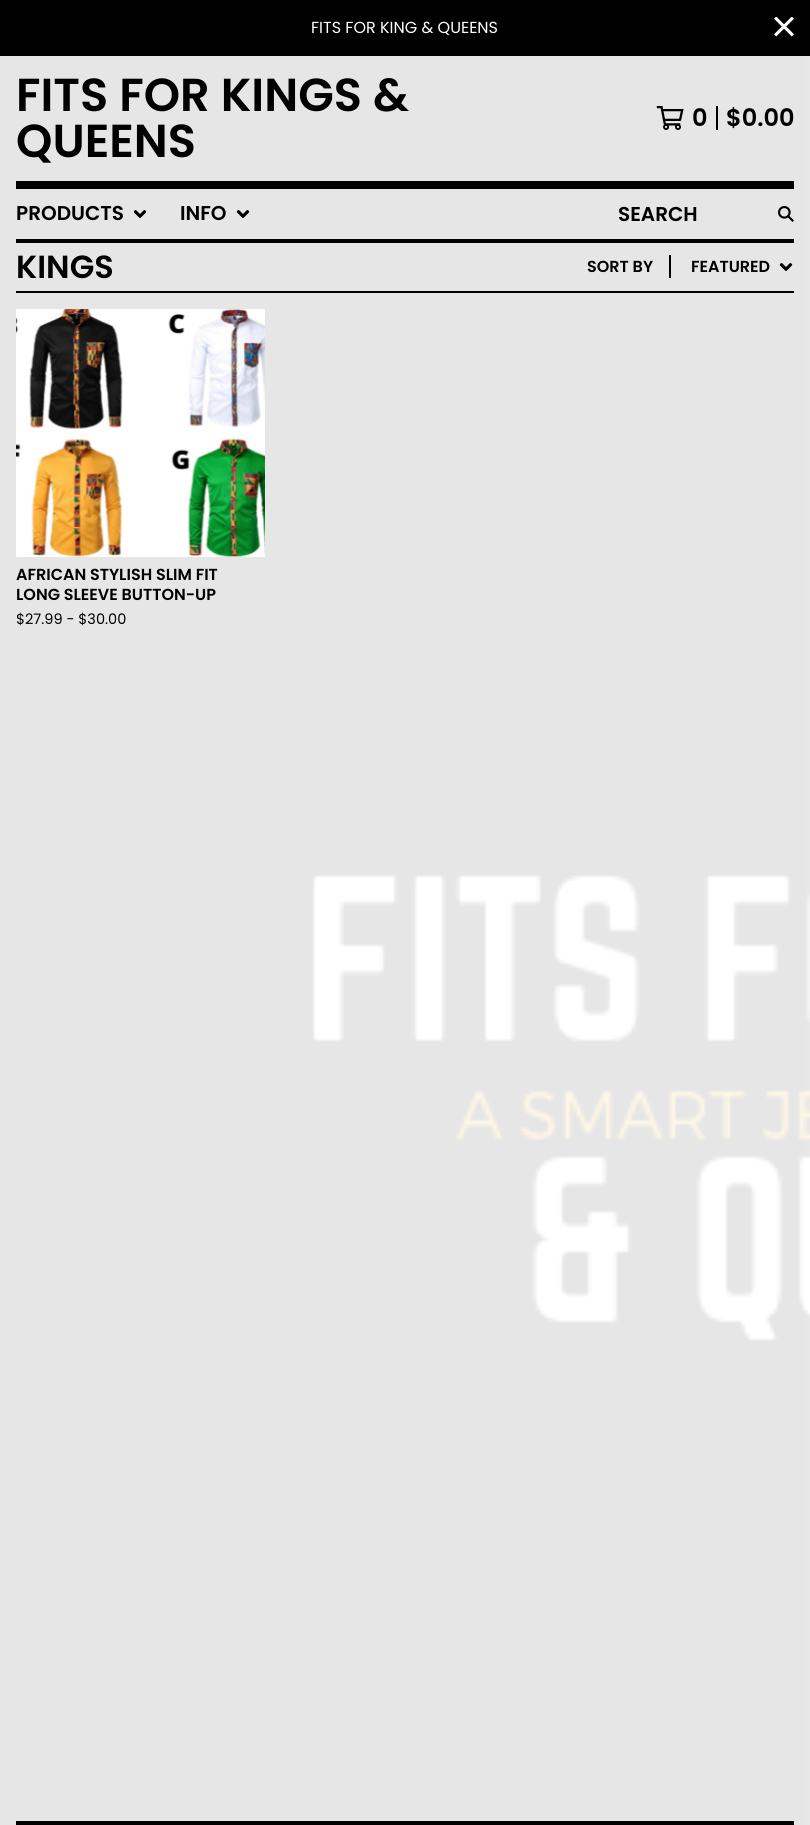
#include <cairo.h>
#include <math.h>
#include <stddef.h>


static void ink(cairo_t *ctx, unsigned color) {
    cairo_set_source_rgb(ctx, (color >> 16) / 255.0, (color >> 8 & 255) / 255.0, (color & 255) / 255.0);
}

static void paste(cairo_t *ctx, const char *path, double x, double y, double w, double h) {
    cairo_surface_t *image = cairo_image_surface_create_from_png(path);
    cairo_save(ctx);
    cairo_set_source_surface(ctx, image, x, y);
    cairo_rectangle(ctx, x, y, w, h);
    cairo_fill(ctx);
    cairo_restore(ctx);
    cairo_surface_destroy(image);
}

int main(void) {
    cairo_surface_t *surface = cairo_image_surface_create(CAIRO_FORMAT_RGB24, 810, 1825);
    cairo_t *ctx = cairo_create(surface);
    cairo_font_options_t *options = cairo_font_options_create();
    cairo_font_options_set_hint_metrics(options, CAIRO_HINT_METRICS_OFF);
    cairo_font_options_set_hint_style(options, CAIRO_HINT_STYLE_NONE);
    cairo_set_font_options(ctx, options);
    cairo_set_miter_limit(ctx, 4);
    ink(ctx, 0xFFFFFF);
    cairo_paint(ctx);
    paste(ctx, "media/1.png", 0, 56, 810, 1769);
    ink(ctx, 0x000000);
    cairo_rectangle(ctx, 0, 0, 810, 56);
    cairo_fill(ctx);
    cairo_select_font_face(ctx, "Poppins", CAIRO_FONT_SLANT_NORMAL, CAIRO_FONT_WEIGHT_NORMAL);
    cairo_set_font_size(ctx, 16);
    ink(ctx, 0xFFFFFF);
    cairo_move_to(ctx, 311, 33);
    cairo_show_text(ctx, "FITS FOR KING & QUEENS");
    paste(ctx, "media/2.png", 774, 17, 20, 20);
    ink(ctx, 0x000000);
    cairo_rectangle(ctx, 16, 181, 778, 8);
    cairo_fill(ctx);
    cairo_select_font_face(ctx, "Poppins SemiBold", CAIRO_FONT_SLANT_NORMAL, CAIRO_FONT_WEIGHT_NORMAL);
    cairo_set_font_size(ctx, 46.25);
    cairo_move_to(ctx, 16, 111);
    cairo_show_text(ctx, "FITS FOR KINGS &");
    cairo_move_to(ctx, 16, 157);
    cairo_show_text(ctx, "QUEENS");
    paste(ctx, "media/3.png", 656, 106, 28, 24);
    cairo_rectangle(ctx, 716, 106, 2, 24);
    cairo_fill(ctx);
    cairo_set_font_size(ctx, 24);
    cairo_move_to(ctx, 692, 126);
    cairo_show_text(ctx, "0");
    cairo_move_to(ctx, 726, 126);
    cairo_show_text(ctx, "$0.00");
    cairo_rectangle(ctx, 16, 239, 778, 4);
    cairo_fill(ctx);
    cairo_set_font_size(ctx, 20);
    cairo_move_to(ctx, 16, 220);
    cairo_show_text(ctx, "PRODUCTS");
    paste(ctx, "media/4.png", 133, 210, 14, 8);
    cairo_move_to(ctx, 180, 220);
    cairo_show_text(ctx, "INFO");
    paste(ctx, "media/4.png", 236, 210, 14, 8);
    cairo_move_to(ctx, 618, 221);
    cairo_show_text(ctx, "SEARCH");
    paste(ctx, "media/5.png", 778, 206, 16, 16);
    cairo_rectangle(ctx, 16, 291, 778, 2);
    cairo_fill(ctx);
    cairo_set_font_size(ctx, 32);
    cairo_move_to(ctx, 16, 278);
    cairo_show_text(ctx, "KINGS");
    cairo_set_font_size(ctx, 16);
    cairo_move_to(ctx, 587, 272);
    cairo_show_text(ctx, "SORT BY");
    cairo_rectangle(ctx, 669, 255, 2, 23);
    cairo_fill(ctx);
    cairo_move_to(ctx, 691, 272);
    cairo_show_text(ctx, "FEATURED");
    paste(ctx, "media/4.png", 779, 263, 14, 8);
    paste(ctx, "media/6.png", 16, 309, 249, 248);
    cairo_move_to(ctx, 16, 580);
    cairo_show_text(ctx, "AFRICAN STYLISH SLIM FIT");
    cairo_move_to(ctx, 16, 600);
    cairo_show_text(ctx, "LONG SLEEVE BUTTON-UP");
    cairo_select_font_face(ctx, "Poppins", CAIRO_FONT_SLANT_NORMAL, CAIRO_FONT_WEIGHT_NORMAL);
    cairo_set_font_size(ctx, 14.5);
    cairo_move_to(ctx, 16, 624);
    cairo_show_text(ctx, "$27.99 - $30.00");
    cairo_rectangle(ctx, 16, 1821, 778, 4);
    cairo_fill(ctx);
    cairo_surface_write_to_png(surface, "image.png");
    cairo_font_options_destroy(options);
    cairo_destroy(ctx);
    cairo_surface_destroy(surface);
    return 0;
}
